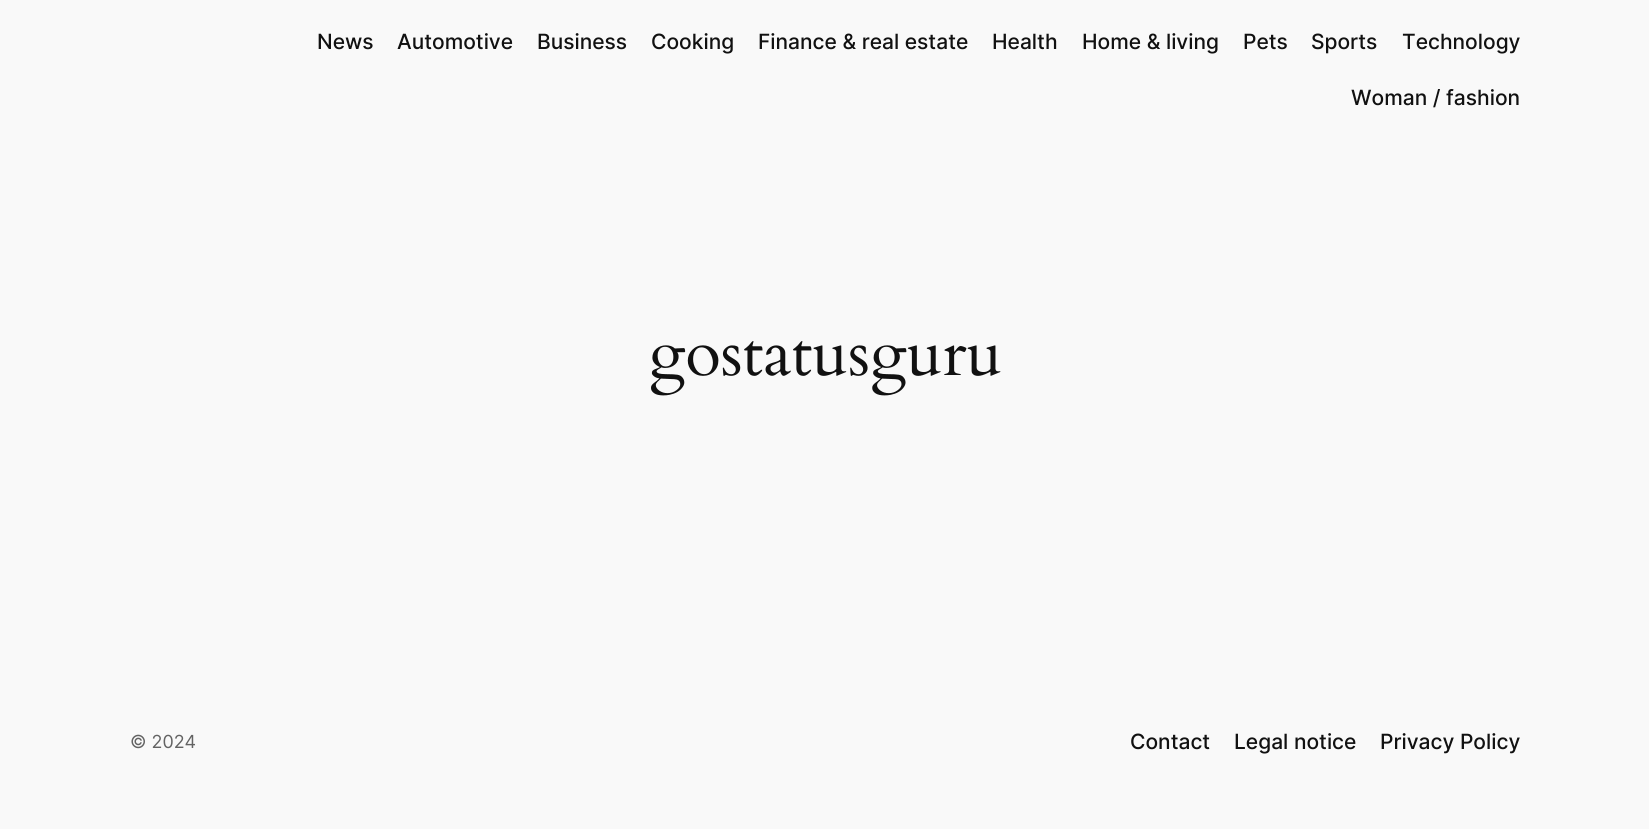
#include <cairo.h>
#include <math.h>
#include <stddef.h>

typedef struct { double x, y; const char *s; } line_t;

static void ink(cairo_t *ctx, unsigned color) {
    cairo_set_source_rgb(ctx, (color >> 16) / 255.0, (color >> 8 & 255) / 255.0, (color & 255) / 255.0);
}

static void paste(cairo_t *ctx, const char *path, double x, double y, double w, double h) {
    cairo_surface_t *image = cairo_image_surface_create_from_png(path);
    cairo_save(ctx);
    cairo_set_source_surface(ctx, image, x, y);
    cairo_rectangle(ctx, x, y, w, h);
    cairo_fill(ctx);
    cairo_restore(ctx);
    cairo_surface_destroy(image);
}

int main(void) {
    cairo_surface_t *surface = cairo_image_surface_create(CAIRO_FORMAT_RGB24, 1649, 829);
    cairo_t *ctx = cairo_create(surface);
    cairo_font_options_t *options = cairo_font_options_create();
    cairo_font_options_set_hint_metrics(options, CAIRO_HINT_METRICS_OFF);
    cairo_font_options_set_hint_style(options, CAIRO_HINT_STYLE_NONE);
    cairo_set_font_options(ctx, options);
    cairo_set_miter_limit(ctx, 4);
    ink(ctx, 0xF9F9F9);
    cairo_paint(ctx);
    cairo_select_font_face(ctx, "Inter Medium", CAIRO_FONT_SLANT_NORMAL, CAIRO_FONT_WEIGHT_NORMAL);
    cairo_set_font_size(ctx, 21);
    ink(ctx, 0x111111);
    {
        static const line_t items[] = {
            {317, 49, "News"},
            {397, 49, "Automotive"},
            {537, 49, "Business"},
            {651, 49, "Cooking"},
            {758, 49, "Finance & real estate"},
            {992, 49, "Health"},
            {1082, 49, "Home & living"},
            {1243, 49, "Pets"},
            {1311, 49, "Sports"},
            {1402, 49, "Technology"},
            {1351, 105, "Woman / fashion"},
        };
        for (size_t i = 0; i < sizeof items / sizeof *items; i++) {
            cairo_move_to(ctx, items[i].x, items[i].y);
            cairo_show_text(ctx, items[i].s);
        }
    }
    paste(ctx, "media/1.png", 651, 341, 350, 55);
    cairo_select_font_face(ctx, "Inter", CAIRO_FONT_SLANT_NORMAL, CAIRO_FONT_WEIGHT_NORMAL);
    cairo_set_font_size(ctx, 18);
    ink(ctx, 0x636363);
    cairo_move_to(ctx, 130, 748);
    cairo_show_text(ctx, "© 2024");
    cairo_select_font_face(ctx, "Inter Medium", CAIRO_FONT_SLANT_NORMAL, CAIRO_FONT_WEIGHT_NORMAL);
    cairo_set_font_size(ctx, 21);
    ink(ctx, 0x111111);
    {
        static const line_t items[] = {
            {1130, 749, "Contact"},
            {1234, 749, "Legal notice"},
            {1380, 749, "Privacy Policy"},
        };
        for (size_t i = 0; i < sizeof items / sizeof *items; i++) {
            cairo_move_to(ctx, items[i].x, items[i].y);
            cairo_show_text(ctx, items[i].s);
        }
    }
    cairo_surface_write_to_png(surface, "image.png");
    cairo_font_options_destroy(options);
    cairo_destroy(ctx);
    cairo_surface_destroy(surface);
    return 0;
}
